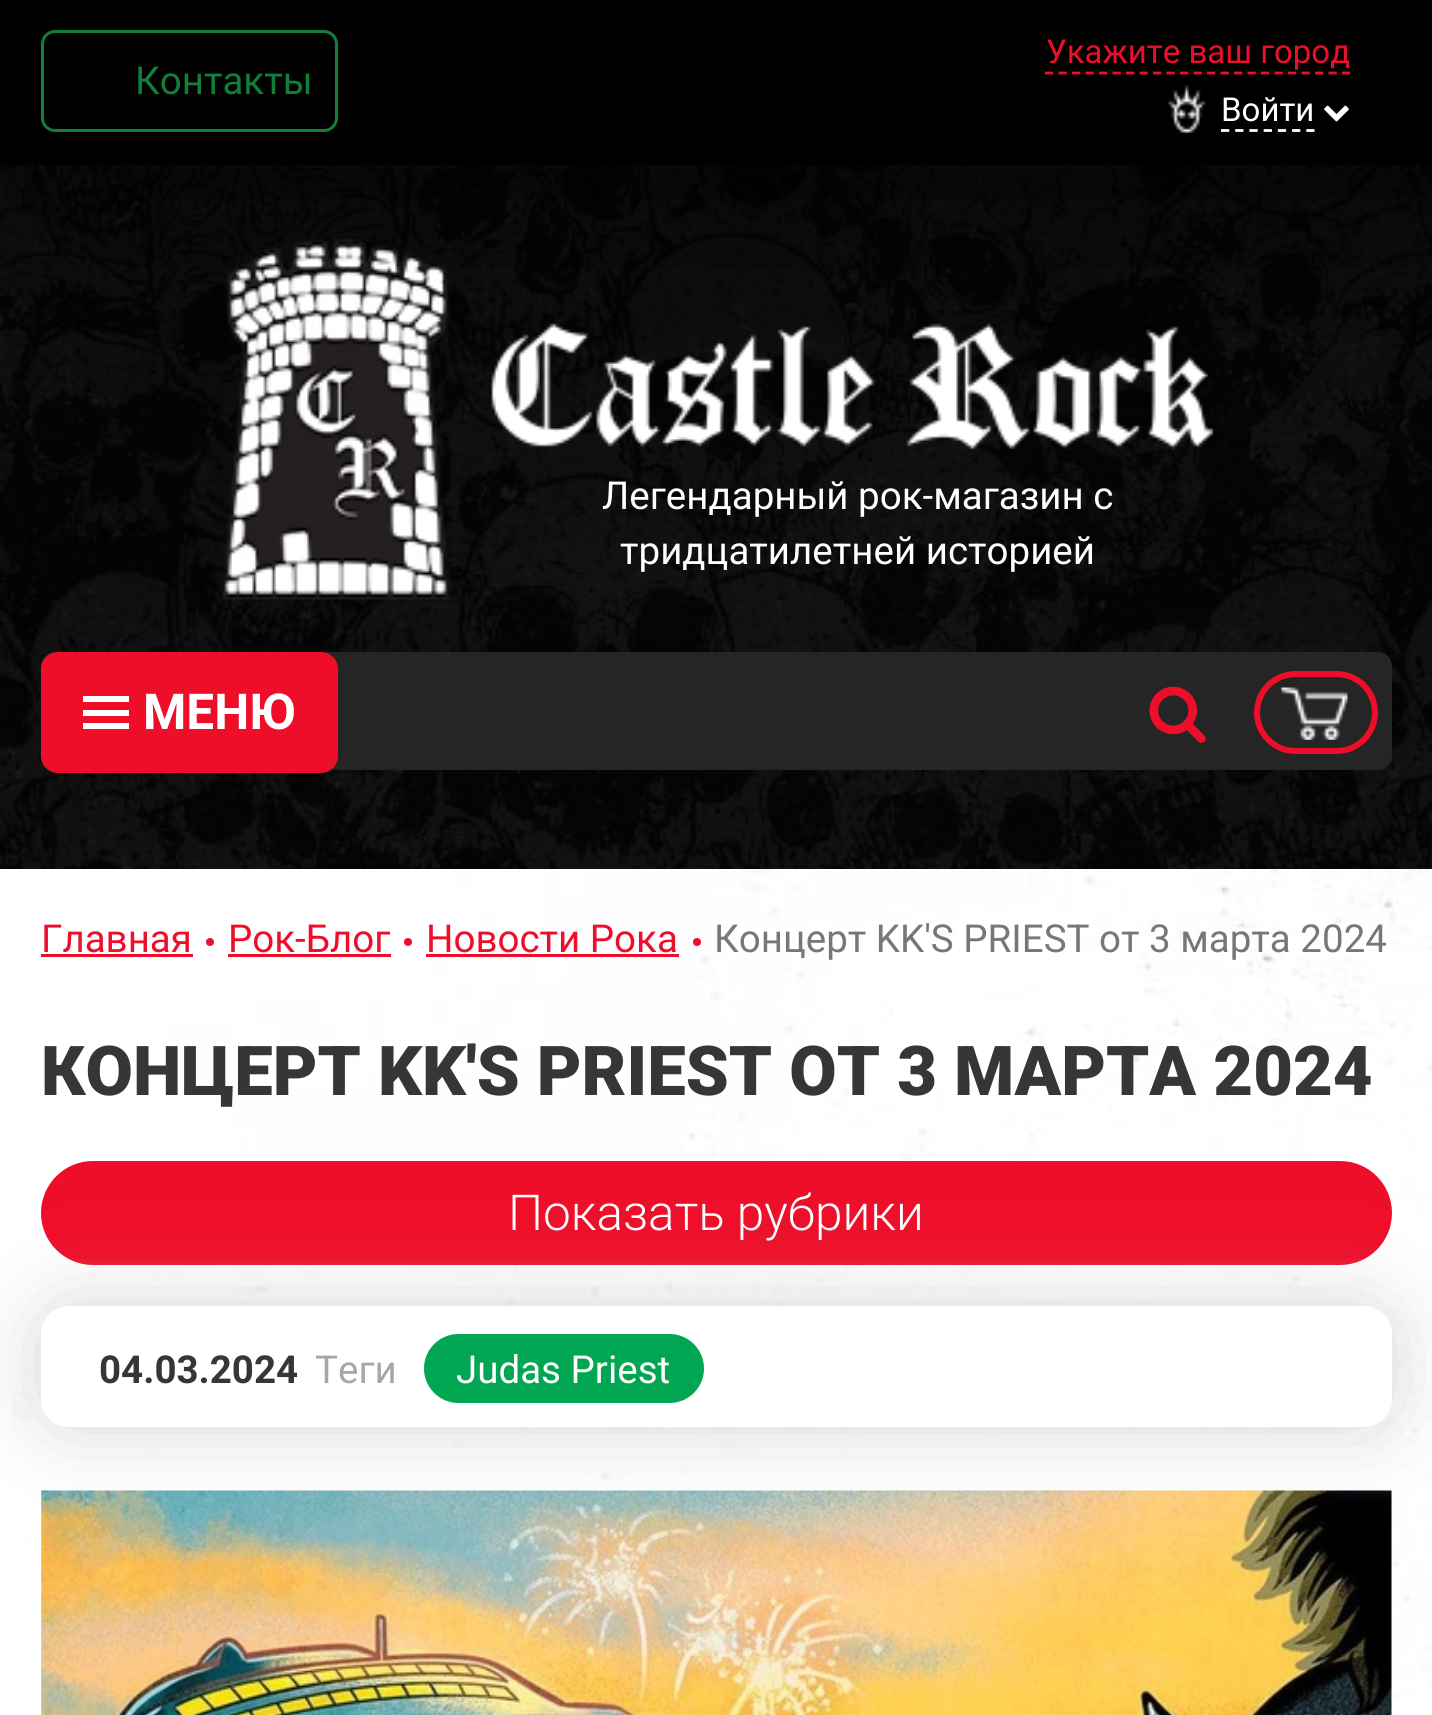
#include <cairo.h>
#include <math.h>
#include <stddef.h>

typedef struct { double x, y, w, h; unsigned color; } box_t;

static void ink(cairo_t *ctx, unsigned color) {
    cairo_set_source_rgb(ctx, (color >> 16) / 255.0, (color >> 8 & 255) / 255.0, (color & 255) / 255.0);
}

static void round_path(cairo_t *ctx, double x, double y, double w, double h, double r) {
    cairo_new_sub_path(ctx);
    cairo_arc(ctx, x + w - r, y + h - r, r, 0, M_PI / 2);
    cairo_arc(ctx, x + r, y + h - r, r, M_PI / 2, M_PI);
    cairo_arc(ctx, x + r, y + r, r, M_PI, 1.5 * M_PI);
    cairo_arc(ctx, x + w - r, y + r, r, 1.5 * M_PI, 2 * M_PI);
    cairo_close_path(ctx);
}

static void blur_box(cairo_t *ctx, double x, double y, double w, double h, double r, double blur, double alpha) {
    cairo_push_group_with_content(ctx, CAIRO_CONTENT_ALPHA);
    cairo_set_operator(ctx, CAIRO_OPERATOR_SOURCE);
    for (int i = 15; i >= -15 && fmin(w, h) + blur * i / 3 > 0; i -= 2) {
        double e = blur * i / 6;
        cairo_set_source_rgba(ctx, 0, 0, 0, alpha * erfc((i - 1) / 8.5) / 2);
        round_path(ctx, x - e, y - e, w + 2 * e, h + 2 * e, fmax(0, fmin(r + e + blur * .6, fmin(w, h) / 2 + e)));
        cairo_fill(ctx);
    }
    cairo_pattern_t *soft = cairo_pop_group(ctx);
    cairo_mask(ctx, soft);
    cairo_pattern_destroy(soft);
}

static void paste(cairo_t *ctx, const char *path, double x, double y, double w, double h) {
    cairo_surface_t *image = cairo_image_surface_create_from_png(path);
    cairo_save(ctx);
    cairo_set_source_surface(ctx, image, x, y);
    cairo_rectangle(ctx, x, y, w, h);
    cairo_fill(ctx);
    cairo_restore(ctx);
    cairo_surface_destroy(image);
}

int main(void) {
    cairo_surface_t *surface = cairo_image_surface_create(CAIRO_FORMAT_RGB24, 1432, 1715);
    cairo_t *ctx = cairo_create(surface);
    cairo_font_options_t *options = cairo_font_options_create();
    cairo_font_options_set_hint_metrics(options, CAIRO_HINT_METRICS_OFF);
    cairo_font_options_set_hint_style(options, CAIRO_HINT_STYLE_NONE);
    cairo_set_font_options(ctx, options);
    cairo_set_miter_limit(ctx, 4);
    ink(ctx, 0xFFFFFF);
    cairo_paint(ctx);
    paste(ctx, "media/1.png", 0, 165, 1432, 704);
    ink(ctx, 0x000000);
    blur_box(ctx, 74, 0, 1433, 165, 0, 206, 1);
    ink(ctx, 0x000000);
    cairo_rectangle(ctx, 0, 0, 1432, 165);
    cairo_fill(ctx);
    cairo_select_font_face(ctx, "Roboto", CAIRO_FONT_SLANT_NORMAL, CAIRO_FONT_WEIGHT_NORMAL);
    cairo_set_font_size(ctx, 33);
    ink(ctx, 0xEF0E29);
    cairo_move_to(ctx, 1046, 63);
    cairo_show_text(ctx, "Укажите ваш город");
    cairo_new_path(ctx);
    cairo_move_to(ctx, 1045, 73);
    cairo_line_to(ctx, 1350, 73);
    cairo_set_line_width(ctx, 2.8);
    cairo_set_dash(ctx, (double[]){8.25, 5.25}, 2, 0);
    cairo_stroke(ctx);
    round_path(ctx, 42.5, 31.5, 294, 99, 12.5);
    ink(ctx, 0x127F39);
    cairo_set_line_width(ctx, 3);
    cairo_set_dash(ctx, NULL, 0, 0);
    cairo_stroke(ctx);
    cairo_set_font_size(ctx, 38.5);
    cairo_move_to(ctx, 135, 94);
    cairo_show_text(ctx, "Контакты");
    paste(ctx, "media/2.png", 1168, 84, 38, 51);
    cairo_set_font_size(ctx, 33);
    ink(ctx, 0xFFFFFF);
    cairo_move_to(ctx, 1221, 121);
    cairo_show_text(ctx, "Войти");
    cairo_new_path(ctx);
    cairo_move_to(ctx, 1221, 130.5);
    cairo_line_to(ctx, 1314.5, 130.5);
    cairo_set_line_width(ctx, 2.8);
    cairo_set_dash(ctx, (double[]){8.25, 5.97}, 2, 0);
    cairo_stroke(ctx);
    paste(ctx, "media/3.png", 1324, 105, 25, 17);
    paste(ctx, "media/4.png", 222, 239, 991, 361);
    cairo_set_font_size(ctx, 38.5);
    cairo_move_to(ctx, 602, 509);
    cairo_show_text(ctx, "Легендарный рок-магазин с");
    cairo_move_to(ctx, 620, 564);
    cairo_show_text(ctx, "тридцатилетней историей");
    ink(ctx, 0x252525);
    round_path(ctx, 41, 652, 1351, 118, 14);
    cairo_fill(ctx);
    paste(ctx, "media/5.png", 1149, 686, 57, 57);
    round_path(ctx, 1257, 674, 118, 77, 38.5);
    ink(ctx, 0xEF0E29);
    cairo_set_line_width(ctx, 6);
    cairo_set_dash(ctx, NULL, 0, 0);
    cairo_stroke(ctx);
    paste(ctx, "media/6.png", 1281, 687, 67, 53);
    round_path(ctx, 41, 652, 297, 121, 17);
    cairo_fill(ctx);
    {
        static const box_t items[] = {
            {83, 696, 46, 6, 0xFFFFFF},
            {83, 710, 46, 6, 0xFFFFFF},
            {83, 723, 46, 6, 0xFFFFFF},
        };
        for (size_t i = 0; i < sizeof items / sizeof *items; i++) {
            ink(ctx, items[i].color);
            cairo_rectangle(ctx, items[i].x, items[i].y, items[i].w, items[i].h);
            cairo_fill(ctx);
        }
    }
    cairo_select_font_face(ctx, "Roboto", CAIRO_FONT_SLANT_NORMAL, CAIRO_FONT_WEIGHT_BOLD);
    cairo_set_font_size(ctx, 49.5);
    cairo_move_to(ctx, 143, 729);
    cairo_show_text(ctx, "МЕНЮ");
    paste(ctx, "media/7.png", 12, 869, 1420, 846);
    cairo_select_font_face(ctx, "Roboto", CAIRO_FONT_SLANT_NORMAL, CAIRO_FONT_WEIGHT_NORMAL);
    cairo_set_font_size(ctx, 38.5);
    ink(ctx, 0xEF0E29);
    cairo_move_to(ctx, 41, 952);
    cairo_show_text(ctx, "Главная");
    cairo_rectangle(ctx, 41, 954, 152, 3);
    cairo_fill(ctx);
    cairo_arc(ctx, 210, 942, 4, 0, 2 * M_PI);
    cairo_fill(ctx);
    cairo_move_to(ctx, 228, 952);
    cairo_show_text(ctx, "Рок-Блог");
    cairo_rectangle(ctx, 228, 954, 163, 3);
    cairo_fill(ctx);
    cairo_arc(ctx, 408, 942, 4, 0, 2 * M_PI);
    cairo_fill(ctx);
    cairo_move_to(ctx, 426, 952);
    cairo_show_text(ctx, "Новости Рока");
    cairo_rectangle(ctx, 426, 954, 253, 3);
    cairo_fill(ctx);
    cairo_arc(ctx, 697, 942, 4, 0, 2 * M_PI);
    cairo_fill(ctx);
    ink(ctx, 0x777777);
    cairo_move_to(ctx, 714, 952);
    cairo_show_text(ctx, "Концерт KK'S PRIEST от 3 марта 2024");
    cairo_select_font_face(ctx, "Roboto Black", CAIRO_FONT_SLANT_NORMAL, CAIRO_FONT_WEIGHT_NORMAL);
    cairo_set_font_size(ctx, 68.75);
    ink(ctx, 0x363636);
    cairo_move_to(ctx, 41, 1095);
    cairo_show_text(ctx, "КОНЦЕРТ KK'S PRIEST ОТ 3 МАРТА 2024");
    ink(ctx, 0xEF0E29);
    round_path(ctx, 42.5, 1162.5, 1348, 101, 50.5);
    cairo_fill_preserve(ctx);
    cairo_set_line_width(ctx, 3);
    cairo_stroke(ctx);
    cairo_select_font_face(ctx, "Roboto Light", CAIRO_FONT_SLANT_NORMAL, CAIRO_FONT_WEIGHT_NORMAL);
    cairo_set_font_size(ctx, 49.5);
    ink(ctx, 0xFFFFFF);
    cairo_move_to(ctx, 508, 1230);
    cairo_show_text(ctx, "Показать рубрики");
    ink(ctx, 0xADADAD);
    blur_box(ctx, 41, 1306, 1351, 121, 28, 41, 0.5);
    ink(ctx, 0xFFFFFF);
    round_path(ctx, 41, 1306, 1351, 121, 28);
    cairo_fill(ctx);
    cairo_select_font_face(ctx, "Roboto", CAIRO_FONT_SLANT_NORMAL, CAIRO_FONT_WEIGHT_BOLD);
    cairo_set_font_size(ctx, 38.5);
    ink(ctx, 0x363636);
    cairo_move_to(ctx, 99, 1383);
    cairo_show_text(ctx, "04.03.2024");
    cairo_select_font_face(ctx, "Roboto", CAIRO_FONT_SLANT_NORMAL, CAIRO_FONT_WEIGHT_NORMAL);
    ink(ctx, 0xA7A7A7);
    cairo_move_to(ctx, 315, 1383);
    cairo_show_text(ctx, "Теги");
    ink(ctx, 0x00A651);
    round_path(ctx, 424, 1334, 280, 69, 34.5);
    cairo_fill(ctx);
    ink(ctx, 0xFFFFFF);
    cairo_move_to(ctx, 456, 1383);
    cairo_show_text(ctx, "Judas Priest");
    paste(ctx, "media/8.png", 41, 1490, 1351, 225);
    cairo_surface_write_to_png(surface, "image.png");
    cairo_font_options_destroy(options);
    cairo_destroy(ctx);
    cairo_surface_destroy(surface);
    return 0;
}
